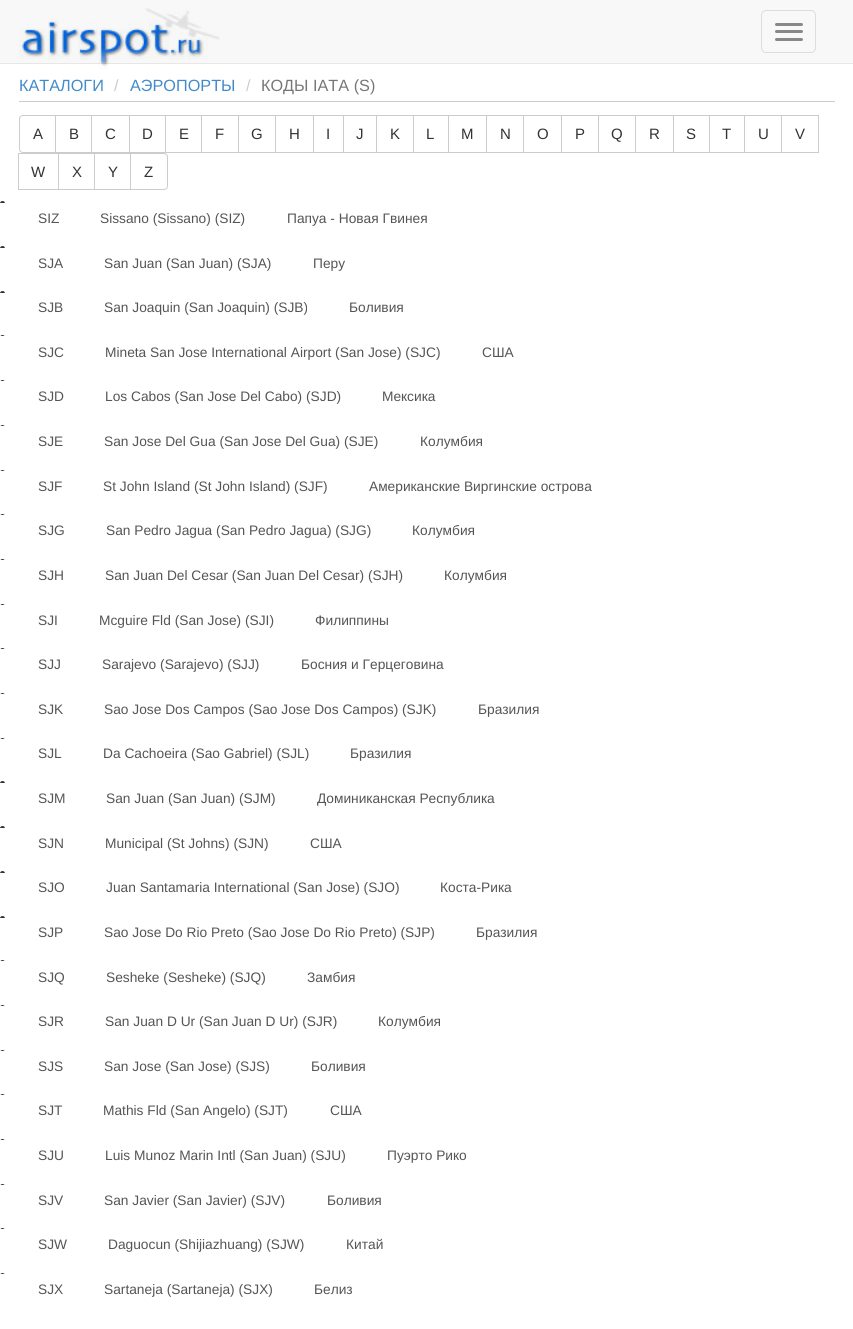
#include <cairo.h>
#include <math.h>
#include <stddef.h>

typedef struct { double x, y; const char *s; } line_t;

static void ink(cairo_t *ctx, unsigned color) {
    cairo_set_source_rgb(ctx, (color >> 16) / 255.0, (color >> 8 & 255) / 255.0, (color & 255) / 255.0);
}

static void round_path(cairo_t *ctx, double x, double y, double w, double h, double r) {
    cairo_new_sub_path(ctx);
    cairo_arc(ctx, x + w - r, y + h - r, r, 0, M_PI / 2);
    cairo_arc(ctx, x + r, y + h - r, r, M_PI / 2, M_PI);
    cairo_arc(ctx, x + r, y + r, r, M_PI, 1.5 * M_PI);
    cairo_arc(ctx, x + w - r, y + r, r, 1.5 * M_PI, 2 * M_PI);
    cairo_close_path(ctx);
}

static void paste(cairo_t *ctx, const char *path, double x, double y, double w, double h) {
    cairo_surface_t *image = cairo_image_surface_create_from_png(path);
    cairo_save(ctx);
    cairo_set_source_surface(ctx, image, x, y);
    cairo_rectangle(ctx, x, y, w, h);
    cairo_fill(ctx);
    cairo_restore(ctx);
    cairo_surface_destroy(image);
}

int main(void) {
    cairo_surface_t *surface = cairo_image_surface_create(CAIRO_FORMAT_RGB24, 853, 1329);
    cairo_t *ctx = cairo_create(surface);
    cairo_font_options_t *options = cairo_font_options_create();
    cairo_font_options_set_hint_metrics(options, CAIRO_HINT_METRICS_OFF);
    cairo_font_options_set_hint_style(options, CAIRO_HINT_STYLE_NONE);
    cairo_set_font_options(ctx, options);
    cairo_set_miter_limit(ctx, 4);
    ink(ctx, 0xFFFFFF);
    cairo_paint(ctx);
    ink(ctx, 0xF8F8F8);
    cairo_rectangle(ctx, 0, 0, 853, 63);
    cairo_fill(ctx);
    ink(ctx, 0xE7E7E7);
    cairo_rectangle(ctx, 0, 63, 853, 1);
    cairo_fill(ctx);
    paste(ctx, "media/1.png", 19, 8, 201, 62);
    round_path(ctx, 761.5, 10.5, 54, 42, 4.5);
    ink(ctx, 0xDDDDDD);
    cairo_set_line_width(ctx, 1);
    cairo_stroke(ctx);
    ink(ctx, 0x888888);
    round_path(ctx, 775, 23, 28, 3, 1.5);
    cairo_fill(ctx);
    round_path(ctx, 775, 30, 28, 3, 1.5);
    cairo_fill(ctx);
    round_path(ctx, 775, 38, 28, 3, 1.5);
    cairo_fill(ctx);
    ink(ctx, 0xCCCCCC);
    cairo_rectangle(ctx, 19, 101, 816, 1);
    cairo_fill(ctx);
    cairo_select_font_face(ctx, "Liberation Sans", CAIRO_FONT_SLANT_NORMAL, CAIRO_FONT_WEIGHT_NORMAL);
    cairo_set_font_size(ctx, 16.25);
    ink(ctx, 0x428BCA);
    cairo_move_to(ctx, 19, 91);
    cairo_show_text(ctx, "КАТАЛОГИ");
    ink(ctx, 0xCCCCCC);
    cairo_move_to(ctx, 114, 91);
    cairo_show_text(ctx, "/");
    ink(ctx, 0x428BCA);
    cairo_move_to(ctx, 130, 91);
    cairo_show_text(ctx, "АЭРОПОРТЫ");
    ink(ctx, 0xCCCCCC);
    cairo_move_to(ctx, 246, 91);
    cairo_show_text(ctx, "/");
    ink(ctx, 0x777777);
    cairo_move_to(ctx, 261, 91);
    cairo_show_text(ctx, "КОДЫ IATA (S)");
    cairo_new_path(ctx);
    cairo_move_to(ctx, 23, 115.5);
    cairo_line_to(ctx, 55.5, 115.5);
    cairo_line_to(ctx, 55.5, 152.5);
    cairo_line_to(ctx, 23, 152.5);
    cairo_curve_to(ctx, 21, 152.5, 19.5, 151, 19.5, 149);
    cairo_line_to(ctx, 19.5, 119);
    cairo_curve_to(ctx, 19.5, 117, 21, 115.5, 23, 115.5);
    cairo_close_path(ctx);
    ink(ctx, 0xCCCCCC);
    cairo_stroke(ctx);
    cairo_set_font_size(ctx, 15);
    ink(ctx, 0x333333);
    cairo_move_to(ctx, 33, 139);
    cairo_show_text(ctx, "A");
    cairo_rectangle(ctx, 55.5, 115.5, 37, 37);
    ink(ctx, 0xCCCCCC);
    cairo_stroke(ctx);
    ink(ctx, 0x333333);
    cairo_move_to(ctx, 69, 139);
    cairo_show_text(ctx, "B");
    ink(ctx, 0xFFFFFF);
    cairo_rectangle(ctx, 92, 116, 1, 36);
    cairo_fill(ctx);
    cairo_rectangle(ctx, 91.5, 115.5, 38, 37);
    ink(ctx, 0xCCCCCC);
    cairo_stroke(ctx);
    ink(ctx, 0x333333);
    cairo_move_to(ctx, 105, 139);
    cairo_show_text(ctx, "C");
    cairo_rectangle(ctx, 129.5, 115.5, 36, 37);
    ink(ctx, 0xCCCCCC);
    cairo_stroke(ctx);
    ink(ctx, 0x333333);
    cairo_move_to(ctx, 142, 139);
    cairo_show_text(ctx, "D");
    cairo_rectangle(ctx, 165.5, 115.5, 37, 37);
    ink(ctx, 0xCCCCCC);
    cairo_stroke(ctx);
    ink(ctx, 0x333333);
    cairo_move_to(ctx, 179, 139);
    cairo_show_text(ctx, "E");
    ink(ctx, 0xFFFFFF);
    cairo_rectangle(ctx, 202, 116, 1, 36);
    cairo_fill(ctx);
    cairo_rectangle(ctx, 201.5, 115.5, 37, 37);
    ink(ctx, 0xCCCCCC);
    cairo_stroke(ctx);
    ink(ctx, 0x333333);
    cairo_move_to(ctx, 215, 139);
    cairo_show_text(ctx, "F");
    cairo_rectangle(ctx, 238.5, 115.5, 37, 37);
    ink(ctx, 0xCCCCCC);
    cairo_stroke(ctx);
    ink(ctx, 0x333333);
    cairo_move_to(ctx, 251, 139);
    cairo_show_text(ctx, "G");
    cairo_rectangle(ctx, 275.5, 115.5, 38, 37);
    ink(ctx, 0xCCCCCC);
    cairo_stroke(ctx);
    ink(ctx, 0x333333);
    cairo_move_to(ctx, 289, 139);
    cairo_show_text(ctx, "H");
    cairo_rectangle(ctx, 313.5, 115.5, 30, 37);
    ink(ctx, 0xCCCCCC);
    cairo_stroke(ctx);
    ink(ctx, 0x333333);
    cairo_move_to(ctx, 326, 139);
    cairo_show_text(ctx, "I");
    cairo_rectangle(ctx, 343.5, 115.5, 34, 37);
    ink(ctx, 0xCCCCCC);
    cairo_stroke(ctx);
    ink(ctx, 0x333333);
    cairo_move_to(ctx, 356, 139);
    cairo_show_text(ctx, "J");
    ink(ctx, 0xFFFFFF);
    cairo_rectangle(ctx, 377, 116, 1, 36);
    cairo_fill(ctx);
    cairo_rectangle(ctx, 376.5, 115.5, 37, 37);
    ink(ctx, 0xCCCCCC);
    cairo_stroke(ctx);
    ink(ctx, 0x333333);
    cairo_move_to(ctx, 390, 139);
    cairo_show_text(ctx, "K");
    cairo_rectangle(ctx, 413.5, 115.5, 35, 37);
    ink(ctx, 0xCCCCCC);
    cairo_stroke(ctx);
    ink(ctx, 0x333333);
    cairo_move_to(ctx, 426, 139);
    cairo_show_text(ctx, "L");
    cairo_rectangle(ctx, 448.5, 115.5, 39, 37);
    ink(ctx, 0xCCCCCC);
    cairo_stroke(ctx);
    ink(ctx, 0x333333);
    cairo_move_to(ctx, 461, 139);
    cairo_show_text(ctx, "M");
    ink(ctx, 0xFFFFFF);
    cairo_rectangle(ctx, 487, 116, 1, 36);
    cairo_fill(ctx);
    cairo_rectangle(ctx, 486.5, 115.5, 37, 37);
    ink(ctx, 0xCCCCCC);
    cairo_stroke(ctx);
    ink(ctx, 0x333333);
    cairo_move_to(ctx, 500, 139);
    cairo_show_text(ctx, "N");
    cairo_rectangle(ctx, 523.5, 115.5, 39, 37);
    ink(ctx, 0xCCCCCC);
    cairo_stroke(ctx);
    ink(ctx, 0x333333);
    cairo_move_to(ctx, 537, 139);
    cairo_show_text(ctx, "O");
    ink(ctx, 0xFFFFFF);
    cairo_rectangle(ctx, 562, 116, 1, 36);
    cairo_fill(ctx);
    cairo_rectangle(ctx, 561.5, 115.5, 37, 37);
    ink(ctx, 0xCCCCCC);
    cairo_stroke(ctx);
    ink(ctx, 0x333333);
    cairo_move_to(ctx, 575, 139);
    cairo_show_text(ctx, "P");
    cairo_rectangle(ctx, 598.5, 115.5, 37, 37);
    ink(ctx, 0xCCCCCC);
    cairo_stroke(ctx);
    ink(ctx, 0x333333);
    cairo_move_to(ctx, 611, 139);
    cairo_show_text(ctx, "Q");
    cairo_rectangle(ctx, 635.5, 115.5, 38, 37);
    ink(ctx, 0xCCCCCC);
    cairo_stroke(ctx);
    ink(ctx, 0x333333);
    cairo_move_to(ctx, 649, 139);
    cairo_show_text(ctx, "R");
    cairo_rectangle(ctx, 673.5, 115.5, 36, 37);
    ink(ctx, 0xCCCCCC);
    cairo_stroke(ctx);
    ink(ctx, 0x333333);
    cairo_move_to(ctx, 686, 139);
    cairo_show_text(ctx, "S");
    cairo_rectangle(ctx, 709.5, 115.5, 35, 37);
    ink(ctx, 0xCCCCCC);
    cairo_stroke(ctx);
    ink(ctx, 0x333333);
    cairo_move_to(ctx, 722, 139);
    cairo_show_text(ctx, "T");
    cairo_rectangle(ctx, 744.5, 115.5, 38, 37);
    ink(ctx, 0xCCCCCC);
    cairo_stroke(ctx);
    ink(ctx, 0x333333);
    cairo_move_to(ctx, 758, 139);
    cairo_show_text(ctx, "U");
    ink(ctx, 0xFFFFFF);
    cairo_rectangle(ctx, 782, 116, 1, 36);
    cairo_fill(ctx);
    cairo_rectangle(ctx, 781.5, 115.5, 37, 37);
    ink(ctx, 0xCCCCCC);
    cairo_stroke(ctx);
    ink(ctx, 0x333333);
    cairo_move_to(ctx, 795, 139);
    cairo_show_text(ctx, "V");
    cairo_rectangle(ctx, 18.5, 153.5, 40, 36);
    ink(ctx, 0xCCCCCC);
    cairo_stroke(ctx);
    ink(ctx, 0x333333);
    cairo_move_to(ctx, 31, 177);
    cairo_show_text(ctx, "W");
    cairo_rectangle(ctx, 58.5, 153.5, 36, 36);
    ink(ctx, 0xCCCCCC);
    cairo_stroke(ctx);
    ink(ctx, 0x333333);
    cairo_move_to(ctx, 72, 177);
    cairo_show_text(ctx, "X");
    cairo_rectangle(ctx, 94.5, 153.5, 36, 36);
    ink(ctx, 0xCCCCCC);
    cairo_stroke(ctx);
    ink(ctx, 0x333333);
    cairo_move_to(ctx, 108, 177);
    cairo_show_text(ctx, "Y");
    ink(ctx, 0xFFFFFF);
    cairo_new_path(ctx);
    cairo_move_to(ctx, 130.5, 153.5);
    cairo_line_to(ctx, 164, 153.5);
    cairo_curve_to(ctx, 166, 153.5, 167.5, 155, 167.5, 157);
    cairo_line_to(ctx, 167.5, 186);
    cairo_curve_to(ctx, 167.5, 188, 166, 189.5, 164, 189.5);
    cairo_line_to(ctx, 130.5, 189.5);
    cairo_close_path(ctx);
    cairo_fill_preserve(ctx);
    ink(ctx, 0xCCCCCC);
    cairo_stroke(ctx);
    ink(ctx, 0x333333);
    cairo_move_to(ctx, 144, 177);
    cairo_show_text(ctx, "Z");
    cairo_new_path(ctx);
    cairo_arc(ctx, 2.5, 203.5, 2.5, 0, 2 * M_PI);
    cairo_fill(ctx);
    ink(ctx, 0xFFFFFF);
    cairo_new_path(ctx);
    cairo_move_to(ctx, 0, 203);
    cairo_line_to(ctx, 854, 203);
    cairo_line_to(ctx, 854, 230);
    cairo_curve_to(ctx, 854, 233, 852, 235, 849, 235);
    cairo_line_to(ctx, 5, 235);
    cairo_curve_to(ctx, 2, 235, 0, 233, 0, 230);
    cairo_close_path(ctx);
    cairo_fill(ctx);
    cairo_set_font_size(ctx, 13.75);
    ink(ctx, 0x555555);
    {
        static const line_t items[] = {
            {38, 223, "SIZ"},
            {100, 223, "Sissano (Sissano) (SIZ)"},
            {287, 223, "Папуа - Новая Гвинея"},
        };
        for (size_t i = 0; i < sizeof items / sizeof *items; i++) {
            cairo_move_to(ctx, items[i].x, items[i].y);
            cairo_show_text(ctx, items[i].s);
        }
    }
    ink(ctx, 0x333333);
    cairo_new_path(ctx);
    cairo_arc(ctx, 2.5, 248.5, 2.5, 0, 2 * M_PI);
    cairo_fill(ctx);
    ink(ctx, 0xFFFFFF);
    cairo_new_path(ctx);
    cairo_move_to(ctx, 0, 248);
    cairo_line_to(ctx, 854, 248);
    cairo_line_to(ctx, 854, 275);
    cairo_curve_to(ctx, 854, 278, 852, 280, 849, 280);
    cairo_line_to(ctx, 5, 280);
    cairo_curve_to(ctx, 2, 280, 0, 278, 0, 275);
    cairo_close_path(ctx);
    cairo_fill(ctx);
    ink(ctx, 0x555555);
    {
        static const line_t items[] = {
            {38, 268, "SJA"},
            {104, 268, "San Juan (San Juan) (SJA)"},
            {313, 268, "Перу"},
        };
        for (size_t i = 0; i < sizeof items / sizeof *items; i++) {
            cairo_move_to(ctx, items[i].x, items[i].y);
            cairo_show_text(ctx, items[i].s);
        }
    }
    ink(ctx, 0x333333);
    cairo_new_path(ctx);
    cairo_arc(ctx, 2.5, 293.5, 2.5, 0, 2 * M_PI);
    cairo_fill(ctx);
    ink(ctx, 0xFFFFFF);
    cairo_new_path(ctx);
    cairo_move_to(ctx, 0, 293);
    cairo_line_to(ctx, 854, 293);
    cairo_line_to(ctx, 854, 319);
    cairo_curve_to(ctx, 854, 322, 852, 324, 849, 324);
    cairo_line_to(ctx, 5, 324);
    cairo_curve_to(ctx, 2, 324, 0, 322, 0, 319);
    cairo_close_path(ctx);
    cairo_fill(ctx);
    ink(ctx, 0x555555);
    {
        static const line_t items[] = {
            {38, 312, "SJB"},
            {104, 312, "San Joaquin (San Joaquin) (SJB)"},
            {349, 312, "Боливия"},
        };
        for (size_t i = 0; i < sizeof items / sizeof *items; i++) {
            cairo_move_to(ctx, items[i].x, items[i].y);
            cairo_show_text(ctx, items[i].s);
        }
    }
    ink(ctx, 0x333333);
    cairo_new_path(ctx);
    cairo_arc(ctx, 2.5, 337.5, 2.5, 0, 2 * M_PI);
    cairo_fill(ctx);
    ink(ctx, 0xFFFFFF);
    cairo_new_path(ctx);
    cairo_move_to(ctx, 0, 336);
    cairo_line_to(ctx, 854, 336);
    cairo_line_to(ctx, 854, 364);
    cairo_curve_to(ctx, 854, 367, 852, 369, 849, 369);
    cairo_line_to(ctx, 5, 369);
    cairo_curve_to(ctx, 2, 369, 0, 367, 0, 364);
    cairo_close_path(ctx);
    cairo_fill(ctx);
    ink(ctx, 0x555555);
    {
        static const line_t items[] = {
            {38, 357, "SJC"},
            {105, 357, "Mineta San Jose International Airport (San Jose) (SJC)"},
            {482, 357, "США"},
        };
        for (size_t i = 0; i < sizeof items / sizeof *items; i++) {
            cairo_move_to(ctx, items[i].x, items[i].y);
            cairo_show_text(ctx, items[i].s);
        }
    }
    ink(ctx, 0x333333);
    cairo_new_path(ctx);
    cairo_arc(ctx, 2.5, 382.5, 2.5, 0, 2 * M_PI);
    cairo_fill(ctx);
    ink(ctx, 0xFFFFFF);
    cairo_new_path(ctx);
    cairo_move_to(ctx, 0, 381);
    cairo_line_to(ctx, 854, 381);
    cairo_line_to(ctx, 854, 409);
    cairo_curve_to(ctx, 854, 412, 852, 414, 849, 414);
    cairo_line_to(ctx, 5, 414);
    cairo_curve_to(ctx, 2, 414, 0, 412, 0, 409);
    cairo_close_path(ctx);
    cairo_fill(ctx);
    ink(ctx, 0x555555);
    {
        static const line_t items[] = {
            {38, 401, "SJD"},
            {105, 401, "Los Cabos (San Jose Del Cabo) (SJD)"},
            {382, 401, "Мексика"},
        };
        for (size_t i = 0; i < sizeof items / sizeof *items; i++) {
            cairo_move_to(ctx, items[i].x, items[i].y);
            cairo_show_text(ctx, items[i].s);
        }
    }
    ink(ctx, 0x333333);
    cairo_new_path(ctx);
    cairo_arc(ctx, 2.5, 427.5, 2.5, 0, 2 * M_PI);
    cairo_fill(ctx);
    ink(ctx, 0xFFFFFF);
    cairo_new_path(ctx);
    cairo_move_to(ctx, 0, 426);
    cairo_line_to(ctx, 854, 426);
    cairo_line_to(ctx, 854, 454);
    cairo_curve_to(ctx, 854, 457, 852, 459, 849, 459);
    cairo_line_to(ctx, 5, 459);
    cairo_curve_to(ctx, 2, 459, 0, 457, 0, 454);
    cairo_close_path(ctx);
    cairo_fill(ctx);
    ink(ctx, 0x555555);
    {
        static const line_t items[] = {
            {38, 446, "SJE"},
            {104, 446, "San Jose Del Gua (San Jose Del Gua) (SJE)"},
            {420, 446, "Колумбия"},
        };
        for (size_t i = 0; i < sizeof items / sizeof *items; i++) {
            cairo_move_to(ctx, items[i].x, items[i].y);
            cairo_show_text(ctx, items[i].s);
        }
    }
    ink(ctx, 0x333333);
    cairo_new_path(ctx);
    cairo_arc(ctx, 2.5, 472.5, 2.5, 0, 2 * M_PI);
    cairo_fill(ctx);
    ink(ctx, 0xFFFFFF);
    cairo_new_path(ctx);
    cairo_move_to(ctx, 0, 471);
    cairo_line_to(ctx, 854, 471);
    cairo_line_to(ctx, 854, 498);
    cairo_curve_to(ctx, 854, 501, 852, 503, 849, 503);
    cairo_line_to(ctx, 5, 503);
    cairo_curve_to(ctx, 2, 503, 0, 501, 0, 498);
    cairo_close_path(ctx);
    cairo_fill(ctx);
    ink(ctx, 0x555555);
    {
        static const line_t items[] = {
            {38, 491, "SJF"},
            {103, 491, "St John Island (St John Island) (SJF)"},
            {369, 491, "Американские Виргинские острова"},
        };
        for (size_t i = 0; i < sizeof items / sizeof *items; i++) {
            cairo_move_to(ctx, items[i].x, items[i].y);
            cairo_show_text(ctx, items[i].s);
        }
    }
    ink(ctx, 0x333333);
    cairo_new_path(ctx);
    cairo_arc(ctx, 2.5, 516.5, 2.5, 0, 2 * M_PI);
    cairo_fill(ctx);
    ink(ctx, 0xFFFFFF);
    cairo_new_path(ctx);
    cairo_move_to(ctx, 0, 515);
    cairo_line_to(ctx, 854, 515);
    cairo_line_to(ctx, 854, 543);
    cairo_curve_to(ctx, 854, 546, 852, 548, 849, 548);
    cairo_line_to(ctx, 5, 548);
    cairo_curve_to(ctx, 2, 548, 0, 546, 0, 543);
    cairo_close_path(ctx);
    cairo_fill(ctx);
    ink(ctx, 0x555555);
    {
        static const line_t items[] = {
            {38, 535, "SJG"},
            {106, 535, "San Pedro Jagua (San Pedro Jagua) (SJG)"},
            {412, 535, "Колумбия"},
        };
        for (size_t i = 0; i < sizeof items / sizeof *items; i++) {
            cairo_move_to(ctx, items[i].x, items[i].y);
            cairo_show_text(ctx, items[i].s);
        }
    }
    ink(ctx, 0x333333);
    cairo_new_path(ctx);
    cairo_arc(ctx, 2.5, 561.5, 2.5, 0, 2 * M_PI);
    cairo_fill(ctx);
    ink(ctx, 0xFFFFFF);
    cairo_new_path(ctx);
    cairo_move_to(ctx, 0, 560);
    cairo_line_to(ctx, 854, 560);
    cairo_line_to(ctx, 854, 588);
    cairo_curve_to(ctx, 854, 591, 852, 593, 849, 593);
    cairo_line_to(ctx, 5, 593);
    cairo_curve_to(ctx, 2, 593, 0, 591, 0, 588);
    cairo_close_path(ctx);
    cairo_fill(ctx);
    ink(ctx, 0x555555);
    {
        static const line_t items[] = {
            {38, 580, "SJH"},
            {105, 580, "San Juan Del Cesar (San Juan Del Cesar) (SJH)"},
            {444, 580, "Колумбия"},
        };
        for (size_t i = 0; i < sizeof items / sizeof *items; i++) {
            cairo_move_to(ctx, items[i].x, items[i].y);
            cairo_show_text(ctx, items[i].s);
        }
    }
    ink(ctx, 0x333333);
    cairo_new_path(ctx);
    cairo_arc(ctx, 2.5, 606.5, 2.5, 0, 2 * M_PI);
    cairo_fill(ctx);
    ink(ctx, 0xFFFFFF);
    cairo_new_path(ctx);
    cairo_move_to(ctx, 0, 605);
    cairo_line_to(ctx, 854, 605);
    cairo_line_to(ctx, 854, 631);
    cairo_curve_to(ctx, 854, 634, 852, 636, 849, 636);
    cairo_line_to(ctx, 5, 636);
    cairo_curve_to(ctx, 2, 636, 0, 634, 0, 631);
    cairo_close_path(ctx);
    cairo_fill(ctx);
    ink(ctx, 0x555555);
    {
        static const line_t items[] = {
            {38, 625, "SJI"},
            {99, 625, "Mcguire Fld (San Jose) (SJI)"},
            {315, 625, "Филиппины"},
        };
        for (size_t i = 0; i < sizeof items / sizeof *items; i++) {
            cairo_move_to(ctx, items[i].x, items[i].y);
            cairo_show_text(ctx, items[i].s);
        }
    }
    ink(ctx, 0x333333);
    cairo_new_path(ctx);
    cairo_arc(ctx, 2.5, 650.5, 2.5, 0, 2 * M_PI);
    cairo_fill(ctx);
    ink(ctx, 0xFFFFFF);
    cairo_new_path(ctx);
    cairo_move_to(ctx, 0, 649);
    cairo_line_to(ctx, 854, 649);
    cairo_line_to(ctx, 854, 676);
    cairo_curve_to(ctx, 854, 679, 852, 681, 849, 681);
    cairo_line_to(ctx, 5, 681);
    cairo_curve_to(ctx, 2, 681, 0, 679, 0, 676);
    cairo_close_path(ctx);
    cairo_fill(ctx);
    ink(ctx, 0x555555);
    {
        static const line_t items[] = {
            {38, 669, "SJJ"},
            {102, 669, "Sarajevo (Sarajevo) (SJJ)"},
            {301, 669, "Босния и Герцеговина"},
        };
        for (size_t i = 0; i < sizeof items / sizeof *items; i++) {
            cairo_move_to(ctx, items[i].x, items[i].y);
            cairo_show_text(ctx, items[i].s);
        }
    }
    ink(ctx, 0x333333);
    cairo_new_path(ctx);
    cairo_arc(ctx, 2.5, 695.5, 2.5, 0, 2 * M_PI);
    cairo_fill(ctx);
    ink(ctx, 0xFFFFFF);
    cairo_new_path(ctx);
    cairo_move_to(ctx, 0, 694);
    cairo_line_to(ctx, 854, 694);
    cairo_line_to(ctx, 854, 721);
    cairo_curve_to(ctx, 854, 724, 852, 726, 849, 726);
    cairo_line_to(ctx, 5, 726);
    cairo_curve_to(ctx, 2, 726, 0, 724, 0, 721);
    cairo_close_path(ctx);
    cairo_fill(ctx);
    ink(ctx, 0x555555);
    {
        static const line_t items[] = {
            {38, 714, "SJK"},
            {104, 714, "Sao Jose Dos Campos (Sao Jose Dos Campos) (SJK)"},
            {478, 714, "Бразилия"},
        };
        for (size_t i = 0; i < sizeof items / sizeof *items; i++) {
            cairo_move_to(ctx, items[i].x, items[i].y);
            cairo_show_text(ctx, items[i].s);
        }
    }
    ink(ctx, 0x333333);
    cairo_new_path(ctx);
    cairo_arc(ctx, 2.5, 740.5, 2.5, 0, 2 * M_PI);
    cairo_fill(ctx);
    ink(ctx, 0xFFFFFF);
    cairo_new_path(ctx);
    cairo_move_to(ctx, 0, 739);
    cairo_line_to(ctx, 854, 739);
    cairo_line_to(ctx, 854, 765);
    cairo_curve_to(ctx, 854, 768, 852, 770, 849, 770);
    cairo_line_to(ctx, 5, 770);
    cairo_curve_to(ctx, 2, 770, 0, 768, 0, 765);
    cairo_close_path(ctx);
    cairo_fill(ctx);
    ink(ctx, 0x555555);
    {
        static const line_t items[] = {
            {38, 758, "SJL"},
            {103, 758, "Da Cachoeira (Sao Gabriel) (SJL)"},
            {350, 758, "Бразилия"},
        };
        for (size_t i = 0; i < sizeof items / sizeof *items; i++) {
            cairo_move_to(ctx, items[i].x, items[i].y);
            cairo_show_text(ctx, items[i].s);
        }
    }
    ink(ctx, 0x333333);
    cairo_new_path(ctx);
    cairo_arc(ctx, 2.5, 783.5, 2.5, 0, 2 * M_PI);
    cairo_fill(ctx);
    ink(ctx, 0xFFFFFF);
    cairo_new_path(ctx);
    cairo_move_to(ctx, 0, 783);
    cairo_line_to(ctx, 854, 783);
    cairo_line_to(ctx, 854, 810);
    cairo_curve_to(ctx, 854, 813, 852, 815, 849, 815);
    cairo_line_to(ctx, 5, 815);
    cairo_curve_to(ctx, 2, 815, 0, 813, 0, 810);
    cairo_close_path(ctx);
    cairo_fill(ctx);
    ink(ctx, 0x555555);
    {
        static const line_t items[] = {
            {38, 803, "SJM"},
            {106, 803, "San Juan (San Juan) (SJM)"},
            {317, 803, "Доминиканская Республика"},
        };
        for (size_t i = 0; i < sizeof items / sizeof *items; i++) {
            cairo_move_to(ctx, items[i].x, items[i].y);
            cairo_show_text(ctx, items[i].s);
        }
    }
    ink(ctx, 0x333333);
    cairo_new_path(ctx);
    cairo_arc(ctx, 2.5, 828.5, 2.5, 0, 2 * M_PI);
    cairo_fill(ctx);
    ink(ctx, 0xFFFFFF);
    cairo_new_path(ctx);
    cairo_move_to(ctx, 0, 828);
    cairo_line_to(ctx, 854, 828);
    cairo_line_to(ctx, 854, 855);
    cairo_curve_to(ctx, 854, 858, 852, 860, 849, 860);
    cairo_line_to(ctx, 5, 860);
    cairo_curve_to(ctx, 2, 860, 0, 858, 0, 855);
    cairo_close_path(ctx);
    cairo_fill(ctx);
    ink(ctx, 0x555555);
    {
        static const line_t items[] = {
            {38, 848, "SJN"},
            {105, 848, "Municipal (St Johns) (SJN)"},
            {310, 848, "США"},
        };
        for (size_t i = 0; i < sizeof items / sizeof *items; i++) {
            cairo_move_to(ctx, items[i].x, items[i].y);
            cairo_show_text(ctx, items[i].s);
        }
    }
    ink(ctx, 0x333333);
    cairo_new_path(ctx);
    cairo_arc(ctx, 2.5, 873.5, 2.5, 0, 2 * M_PI);
    cairo_fill(ctx);
    ink(ctx, 0xFFFFFF);
    cairo_new_path(ctx);
    cairo_move_to(ctx, 0, 873);
    cairo_line_to(ctx, 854, 873);
    cairo_line_to(ctx, 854, 900);
    cairo_curve_to(ctx, 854, 903, 852, 905, 849, 905);
    cairo_line_to(ctx, 5, 905);
    cairo_curve_to(ctx, 2, 905, 0, 903, 0, 900);
    cairo_close_path(ctx);
    cairo_fill(ctx);
    ink(ctx, 0x555555);
    {
        static const line_t items[] = {
            {38, 892, "SJO"},
            {106, 892, "Juan Santamaria International (San Jose) (SJO)"},
            {440, 892, "Коста-Рика"},
        };
        for (size_t i = 0; i < sizeof items / sizeof *items; i++) {
            cairo_move_to(ctx, items[i].x, items[i].y);
            cairo_show_text(ctx, items[i].s);
        }
    }
    ink(ctx, 0x333333);
    cairo_new_path(ctx);
    cairo_arc(ctx, 2.5, 918.5, 2.5, 0, 2 * M_PI);
    cairo_fill(ctx);
    ink(ctx, 0xFFFFFF);
    cairo_new_path(ctx);
    cairo_move_to(ctx, 0, 918);
    cairo_line_to(ctx, 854, 918);
    cairo_line_to(ctx, 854, 944);
    cairo_curve_to(ctx, 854, 947, 852, 949, 849, 949);
    cairo_line_to(ctx, 5, 949);
    cairo_curve_to(ctx, 2, 949, 0, 947, 0, 944);
    cairo_close_path(ctx);
    cairo_fill(ctx);
    ink(ctx, 0x555555);
    {
        static const line_t items[] = {
            {38, 937, "SJP"},
            {104, 937, "Sao Jose Do Rio Preto (Sao Jose Do Rio Preto) (SJP)"},
            {476, 937, "Бразилия"},
        };
        for (size_t i = 0; i < sizeof items / sizeof *items; i++) {
            cairo_move_to(ctx, items[i].x, items[i].y);
            cairo_show_text(ctx, items[i].s);
        }
    }
    ink(ctx, 0x333333);
    cairo_new_path(ctx);
    cairo_arc(ctx, 2.5, 962.5, 2.5, 0, 2 * M_PI);
    cairo_fill(ctx);
    ink(ctx, 0xFFFFFF);
    cairo_new_path(ctx);
    cairo_move_to(ctx, 0, 961);
    cairo_line_to(ctx, 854, 961);
    cairo_line_to(ctx, 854, 989);
    cairo_curve_to(ctx, 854, 992, 852, 994, 849, 994);
    cairo_line_to(ctx, 5, 994);
    cairo_curve_to(ctx, 2, 994, 0, 992, 0, 989);
    cairo_close_path(ctx);
    cairo_fill(ctx);
    ink(ctx, 0x555555);
    {
        static const line_t items[] = {
            {38, 982, "SJQ"},
            {106, 982, "Sesheke (Sesheke) (SJQ)"},
            {307, 982, "Замбия"},
        };
        for (size_t i = 0; i < sizeof items / sizeof *items; i++) {
            cairo_move_to(ctx, items[i].x, items[i].y);
            cairo_show_text(ctx, items[i].s);
        }
    }
    ink(ctx, 0x333333);
    cairo_new_path(ctx);
    cairo_arc(ctx, 2.5, 1007.5, 2.5, 0, 2 * M_PI);
    cairo_fill(ctx);
    ink(ctx, 0xFFFFFF);
    cairo_new_path(ctx);
    cairo_move_to(ctx, 0, 1006);
    cairo_line_to(ctx, 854, 1006);
    cairo_line_to(ctx, 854, 1034);
    cairo_curve_to(ctx, 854, 1037, 852, 1039, 849, 1039);
    cairo_line_to(ctx, 5, 1039);
    cairo_curve_to(ctx, 2, 1039, 0, 1037, 0, 1034);
    cairo_close_path(ctx);
    cairo_fill(ctx);
    ink(ctx, 0x555555);
    {
        static const line_t items[] = {
            {38, 1026, "SJR"},
            {105, 1026, "San Juan D Ur (San Juan D Ur) (SJR)"},
            {378, 1026, "Колумбия"},
        };
        for (size_t i = 0; i < sizeof items / sizeof *items; i++) {
            cairo_move_to(ctx, items[i].x, items[i].y);
            cairo_show_text(ctx, items[i].s);
        }
    }
    ink(ctx, 0x333333);
    cairo_new_path(ctx);
    cairo_arc(ctx, 2.5, 1052.5, 2.5, 0, 2 * M_PI);
    cairo_fill(ctx);
    ink(ctx, 0xFFFFFF);
    cairo_new_path(ctx);
    cairo_move_to(ctx, 0, 1051);
    cairo_line_to(ctx, 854, 1051);
    cairo_line_to(ctx, 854, 1078);
    cairo_curve_to(ctx, 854, 1081, 852, 1083, 849, 1083);
    cairo_line_to(ctx, 5, 1083);
    cairo_curve_to(ctx, 2, 1083, 0, 1081, 0, 1078);
    cairo_close_path(ctx);
    cairo_fill(ctx);
    ink(ctx, 0x555555);
    {
        static const line_t items[] = {
            {38, 1071, "SJS"},
            {104, 1071, "San Jose (San Jose) (SJS)"},
            {311, 1071, "Боливия"},
        };
        for (size_t i = 0; i < sizeof items / sizeof *items; i++) {
            cairo_move_to(ctx, items[i].x, items[i].y);
            cairo_show_text(ctx, items[i].s);
        }
    }
    ink(ctx, 0x333333);
    cairo_new_path(ctx);
    cairo_arc(ctx, 2.5, 1096.5, 2.5, 0, 2 * M_PI);
    cairo_fill(ctx);
    ink(ctx, 0xFFFFFF);
    cairo_new_path(ctx);
    cairo_move_to(ctx, 0, 1095);
    cairo_line_to(ctx, 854, 1095);
    cairo_line_to(ctx, 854, 1123);
    cairo_curve_to(ctx, 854, 1126, 852, 1128, 849, 1128);
    cairo_line_to(ctx, 5, 1128);
    cairo_curve_to(ctx, 2, 1128, 0, 1126, 0, 1123);
    cairo_close_path(ctx);
    cairo_fill(ctx);
    ink(ctx, 0x555555);
    {
        static const line_t items[] = {
            {38, 1115, "SJT"},
            {103, 1115, "Mathis Fld (San Angelo) (SJT)"},
            {330, 1115, "США"},
        };
        for (size_t i = 0; i < sizeof items / sizeof *items; i++) {
            cairo_move_to(ctx, items[i].x, items[i].y);
            cairo_show_text(ctx, items[i].s);
        }
    }
    ink(ctx, 0x333333);
    cairo_new_path(ctx);
    cairo_arc(ctx, 2.5, 1141.5, 2.5, 0, 2 * M_PI);
    cairo_fill(ctx);
    ink(ctx, 0xFFFFFF);
    cairo_new_path(ctx);
    cairo_move_to(ctx, 0, 1140);
    cairo_line_to(ctx, 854, 1140);
    cairo_line_to(ctx, 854, 1168);
    cairo_curve_to(ctx, 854, 1171, 852, 1173, 849, 1173);
    cairo_line_to(ctx, 5, 1173);
    cairo_curve_to(ctx, 2, 1173, 0, 1171, 0, 1168);
    cairo_close_path(ctx);
    cairo_fill(ctx);
    ink(ctx, 0x555555);
    {
        static const line_t items[] = {
            {38, 1160, "SJU"},
            {105, 1160, "Luis Munoz Marin Intl (San Juan) (SJU)"},
            {387, 1160, "Пуэрто Рико"},
        };
        for (size_t i = 0; i < sizeof items / sizeof *items; i++) {
            cairo_move_to(ctx, items[i].x, items[i].y);
            cairo_show_text(ctx, items[i].s);
        }
    }
    ink(ctx, 0x333333);
    cairo_new_path(ctx);
    cairo_arc(ctx, 2.5, 1186.5, 2.5, 0, 2 * M_PI);
    cairo_fill(ctx);
    ink(ctx, 0xFFFFFF);
    cairo_new_path(ctx);
    cairo_move_to(ctx, 0, 1185);
    cairo_line_to(ctx, 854, 1185);
    cairo_line_to(ctx, 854, 1211);
    cairo_curve_to(ctx, 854, 1214, 852, 1216, 849, 1216);
    cairo_line_to(ctx, 5, 1216);
    cairo_curve_to(ctx, 2, 1216, 0, 1214, 0, 1211);
    cairo_close_path(ctx);
    cairo_fill(ctx);
    ink(ctx, 0x555555);
    {
        static const line_t items[] = {
            {38, 1205, "SJV"},
            {104, 1205, "San Javier (San Javier) (SJV)"},
            {327, 1205, "Боливия"},
        };
        for (size_t i = 0; i < sizeof items / sizeof *items; i++) {
            cairo_move_to(ctx, items[i].x, items[i].y);
            cairo_show_text(ctx, items[i].s);
        }
    }
    ink(ctx, 0x333333);
    cairo_new_path(ctx);
    cairo_arc(ctx, 2.5, 1230.5, 2.5, 0, 2 * M_PI);
    cairo_fill(ctx);
    ink(ctx, 0xFFFFFF);
    cairo_new_path(ctx);
    cairo_move_to(ctx, 0, 1229);
    cairo_line_to(ctx, 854, 1229);
    cairo_line_to(ctx, 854, 1256);
    cairo_curve_to(ctx, 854, 1259, 852, 1261, 849, 1261);
    cairo_line_to(ctx, 5, 1261);
    cairo_curve_to(ctx, 2, 1261, 0, 1259, 0, 1256);
    cairo_close_path(ctx);
    cairo_fill(ctx);
    ink(ctx, 0x555555);
    {
        static const line_t items[] = {
            {38, 1249, "SJW"},
            {108, 1249, "Daguocun (Shijiazhuang) (SJW)"},
            {346, 1249, "Китай"},
        };
        for (size_t i = 0; i < sizeof items / sizeof *items; i++) {
            cairo_move_to(ctx, items[i].x, items[i].y);
            cairo_show_text(ctx, items[i].s);
        }
    }
    ink(ctx, 0x333333);
    cairo_new_path(ctx);
    cairo_arc(ctx, 2.5, 1275.5, 2.5, 0, 2 * M_PI);
    cairo_fill(ctx);
    ink(ctx, 0xFFFFFF);
    cairo_new_path(ctx);
    cairo_move_to(ctx, 0, 1274);
    cairo_line_to(ctx, 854, 1274);
    cairo_line_to(ctx, 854, 1301);
    cairo_curve_to(ctx, 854, 1304, 852, 1306, 849, 1306);
    cairo_line_to(ctx, 5, 1306);
    cairo_curve_to(ctx, 2, 1306, 0, 1304, 0, 1301);
    cairo_close_path(ctx);
    cairo_fill(ctx);
    ink(ctx, 0x555555);
    {
        static const line_t items[] = {
            {38, 1294, "SJX"},
            {104, 1294, "Sartaneja (Sartaneja) (SJX)"},
            {314, 1294, "Белиз"},
        };
        for (size_t i = 0; i < sizeof items / sizeof *items; i++) {
            cairo_move_to(ctx, items[i].x, items[i].y);
            cairo_show_text(ctx, items[i].s);
        }
    }
    cairo_surface_write_to_png(surface, "image.png");
    cairo_font_options_destroy(options);
    cairo_destroy(ctx);
    cairo_surface_destroy(surface);
    return 0;
}
